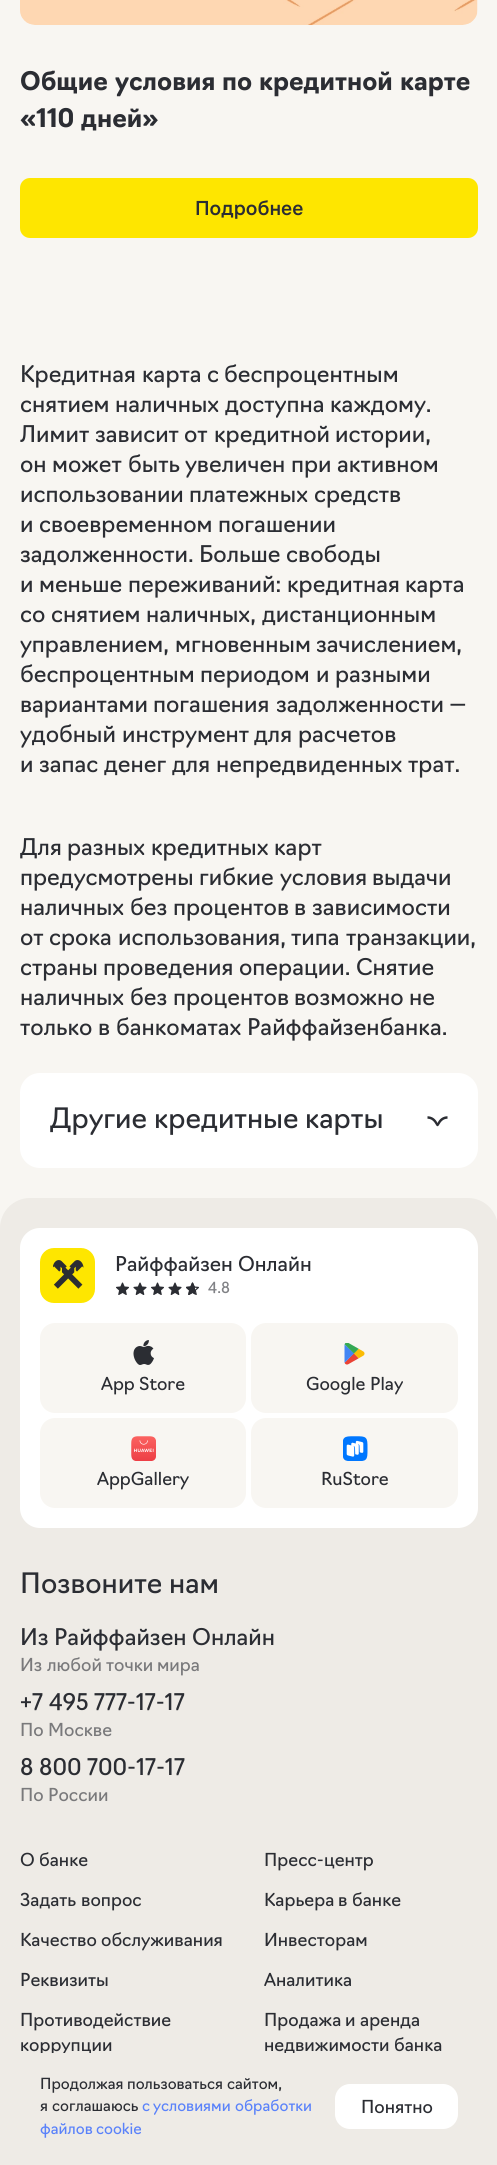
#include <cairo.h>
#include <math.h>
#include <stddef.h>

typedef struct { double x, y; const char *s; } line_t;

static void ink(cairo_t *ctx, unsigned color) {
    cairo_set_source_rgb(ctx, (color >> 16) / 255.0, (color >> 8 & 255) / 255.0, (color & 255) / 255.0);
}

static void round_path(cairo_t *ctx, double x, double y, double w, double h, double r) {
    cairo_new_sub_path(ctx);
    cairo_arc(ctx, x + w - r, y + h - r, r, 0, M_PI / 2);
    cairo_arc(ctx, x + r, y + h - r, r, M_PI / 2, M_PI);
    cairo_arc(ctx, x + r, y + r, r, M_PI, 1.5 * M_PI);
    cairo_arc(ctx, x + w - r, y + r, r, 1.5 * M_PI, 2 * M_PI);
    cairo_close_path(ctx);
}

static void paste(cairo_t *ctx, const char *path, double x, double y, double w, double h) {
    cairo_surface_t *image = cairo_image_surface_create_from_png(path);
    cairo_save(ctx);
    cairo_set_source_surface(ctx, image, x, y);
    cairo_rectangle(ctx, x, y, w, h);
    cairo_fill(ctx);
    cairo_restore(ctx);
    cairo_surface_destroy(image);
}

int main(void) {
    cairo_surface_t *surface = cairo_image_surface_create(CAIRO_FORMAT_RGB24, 497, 2165);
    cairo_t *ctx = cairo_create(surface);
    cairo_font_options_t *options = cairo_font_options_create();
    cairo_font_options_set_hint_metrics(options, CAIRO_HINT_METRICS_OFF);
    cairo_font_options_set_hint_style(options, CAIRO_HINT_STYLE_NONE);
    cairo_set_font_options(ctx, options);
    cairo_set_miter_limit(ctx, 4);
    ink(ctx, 0xF8F6F2);
    cairo_paint(ctx);
    paste(ctx, "media/1.png", 20, 0, 458, 25);
    cairo_select_font_face(ctx, "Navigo", CAIRO_FONT_SLANT_NORMAL, CAIRO_FONT_WEIGHT_BOLD);
    cairo_set_font_size(ctx, 25);
    ink(ctx, 0x2B2D33);
    {
        static const line_t items[] = {
            {20, 90, "Общие"},
            {115, 90, "условия"},
            {222, 90, "по"},
            {259, 90, "кредитной"},
            {400, 90, "карте"},
            {20, 127, "«110"},
            {81, 127, "дней»"},
        };
        for (size_t i = 0; i < sizeof items / sizeof *items; i++) {
            cairo_move_to(ctx, items[i].x, items[i].y);
            cairo_show_text(ctx, items[i].s);
        }
    }
    ink(ctx, 0xFEE600);
    round_path(ctx, 20, 178, 458, 60, 10);
    cairo_fill(ctx);
    cairo_select_font_face(ctx, "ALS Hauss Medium", CAIRO_FONT_SLANT_NORMAL, CAIRO_FONT_WEIGHT_NORMAL);
    cairo_set_font_size(ctx, 20);
    ink(ctx, 0x2B2D33);
    cairo_move_to(ctx, 195, 215);
    cairo_show_text(ctx, "Подробнее");
    cairo_select_font_face(ctx, "Navigo", CAIRO_FONT_SLANT_NORMAL, CAIRO_FONT_WEIGHT_NORMAL);
    cairo_set_font_size(ctx, 22.5);
    {
        static const line_t items[] = {
            {20, 382, "Кредитная"},
            {142, 382, "карта"},
            {207, 382, "с"},
            {224, 382, "беспроцентным"},
            {20, 412, "снятием"},
            {115, 412, "наличных"},
            {225, 412, "доступна"},
            {330, 412, "каждому."},
            {20, 442, "Лимит"},
            {95, 442, "зависит"},
            {184, 442, "от"},
            {214, 442, "кредитной"},
            {335, 442, "истории,"},
            {20, 472, "он"},
            {52, 472, "может"},
            {128, 472, "быть"},
            {185, 472, "увеличен"},
            {291, 472, "при"},
            {337, 472, "активном"},
            {20, 502, "использовании"},
            {189, 502, "платежных"},
            {314, 502, "средств"},
            {20, 532, "и"},
            {39, 532, "своевременном"},
            {218, 532, "погашении"},
            {20, 562, "задолженности."},
            {199, 562, "Больше"},
            {286, 562, "свободы"},
            {20, 592, "и"},
            {39, 592, "меньше"},
            {128, 592, "переживаний:"},
            {287, 592, "кредитная"},
            {405, 592, "карта"},
            {20, 622, "со"},
            {51, 622, "снятием"},
            {146, 622, "наличных,"},
            {262, 622, "дистанционным"},
            {20, 652, "управлением,"},
            {175, 652, "мгновенным"},
            {316, 652, "зачислением,"},
            {20, 682, "беспроцентным"},
            {200, 682, "периодом"},
            {316, 682, "и"},
            {335, 682, "разными"},
            {20, 712, "вариантами"},
            {153, 712, "погашения"},
            {276, 712, "задолженности"},
            {449, 712, "—"},
            {20, 742, "удобный"},
            {122, 742, "инструмент"},
            {254, 742, "для"},
            {298, 742, "расчетов"},
            {20, 772, "и"},
            {39, 772, "запас"},
            {104, 772, "денег"},
            {172, 772, "для"},
            {216, 772, "непредвиденных"},
            {408, 772, "трат."},
            {20, 855, "Для"},
            {67, 855, "разных"},
            {151, 855, "кредитных"},
            {274, 855, "карт"},
            {20, 885, "предусмотрены"},
            {199, 885, "гибкие"},
            {280, 885, "условия"},
            {372, 885, "выдачи"},
            {20, 915, "наличных"},
            {130, 915, "без"},
            {173, 915, "процентов"},
            {294, 915, "в"},
            {312, 915, "зависимости"},
            {20, 945, "от"},
            {49, 945, "срока"},
            {118, 945, "использования,"},
            {291, 945, "типа"},
            {346, 945, "транзакции,"},
            {20, 975, "страны"},
            {103, 975, "проведения"},
            {239, 975, "операции."},
            {356, 975, "Снятие"},
            {20, 1005, "наличных"},
            {130, 1005, "без"},
            {173, 1005, "процентов"},
            {294, 1005, "возможно"},
            {409, 1005, "не"},
            {20, 1035, "только"},
            {98, 1035, "в"},
            {116, 1035, "банкоматах"},
            {247, 1035, "Райффайзенбанка."},
        };
        for (size_t i = 0; i < sizeof items / sizeof *items; i++) {
            cairo_move_to(ctx, items[i].x, items[i].y);
            cairo_show_text(ctx, items[i].s);
        }
    }
    ink(ctx, 0xFFFFFF);
    round_path(ctx, 20, 1073, 458, 95, 20);
    cairo_fill(ctx);
    cairo_set_font_size(ctx, 27.5);
    ink(ctx, 0x2B2D33);
    {
        static const line_t items[] = {
            {50, 1128, "Другие"},
            {154, 1128, "кредитные"},
            {305, 1128, "карты"},
        };
        for (size_t i = 0; i < sizeof items / sizeof *items; i++) {
            cairo_move_to(ctx, items[i].x, items[i].y);
            cairo_show_text(ctx, items[i].s);
        }
    }
    paste(ctx, "media/2.png", 427, 1116, 21, 11);
    ink(ctx, 0xEEEBE6);
    cairo_new_path(ctx);
    cairo_move_to(ctx, 30, 1198);
    cairo_line_to(ctx, 468, 1198);
    cairo_curve_to(ctx, 484.5, 1198, 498, 1211.5, 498, 1228);
    cairo_line_to(ctx, 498, 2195);
    cairo_line_to(ctx, 0, 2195);
    cairo_line_to(ctx, 0, 1228);
    cairo_curve_to(ctx, 0, 1211.5, 13.5, 1198, 30, 1198);
    cairo_close_path(ctx);
    cairo_fill(ctx);
    ink(ctx, 0xFFFFFF);
    round_path(ctx, 20, 1228, 458, 300, 20);
    cairo_fill(ctx);
    ink(ctx, 0xFEE600);
    round_path(ctx, 40, 1248, 55, 55, 14);
    cairo_fill(ctx);
    paste(ctx, "media/3.png", 53, 1260, 31, 29);
    cairo_set_font_size(ctx, 20);
    ink(ctx, 0x2B2D33);
    cairo_move_to(ctx, 115, 1271);
    cairo_show_text(ctx, "Райффайзен");
    cairo_move_to(ctx, 238, 1271);
    cairo_show_text(ctx, "Онлайн");
    paste(ctx, "media/4.png", 116, 1282, 13, 13);
    paste(ctx, "media/5.png", 133, 1282, 14, 13);
    paste(ctx, "media/4.png", 151, 1282, 13, 13);
    paste(ctx, "media/5.png", 168, 1282, 14, 13);
    paste(ctx, "media/6.png", 186, 1282, 13, 13);
    paste(ctx, "media/7.png", 186, 1282, 9, 13);
    cairo_set_font_size(ctx, 15);
    ink(ctx, 0x808185);
    cairo_move_to(ctx, 208, 1293);
    cairo_show_text(ctx, "4.8");
    ink(ctx, 0xF8F6F2);
    round_path(ctx, 40, 1323, 206, 90, 15);
    cairo_fill(ctx);
    paste(ctx, "media/8.png", 133, 1340, 21, 25);
    cairo_set_font_size(ctx, 17.5);
    ink(ctx, 0x2B2D33);
    cairo_move_to(ctx, 101, 1390);
    cairo_show_text(ctx, "App");
    cairo_move_to(ctx, 139, 1390);
    cairo_show_text(ctx, "Store");
    ink(ctx, 0xF8F6F2);
    round_path(ctx, 251, 1323, 207, 90, 15);
    cairo_fill(ctx);
    paste(ctx, "media/9.png", 344, 1343, 21, 22);
    ink(ctx, 0x2B2D33);
    cairo_move_to(ctx, 306, 1390);
    cairo_show_text(ctx, "Google");
    cairo_move_to(ctx, 370, 1390);
    cairo_show_text(ctx, "Play");
    ink(ctx, 0xF8F6F2);
    round_path(ctx, 40, 1418, 206, 90, 15);
    cairo_fill(ctx);
    paste(ctx, "media/10.png", 131, 1436, 25, 25);
    ink(ctx, 0x2B2D33);
    cairo_move_to(ctx, 97, 1485);
    cairo_show_text(ctx, "AppGallery");
    ink(ctx, 0xF8F6F2);
    round_path(ctx, 251, 1418, 207, 90, 15);
    cairo_fill(ctx);
    paste(ctx, "media/11.png", 343, 1436, 25, 25);
    ink(ctx, 0x2B2D33);
    cairo_move_to(ctx, 321, 1485);
    cairo_show_text(ctx, "RuStore");
    cairo_set_font_size(ctx, 27.5);
    cairo_move_to(ctx, 20, 1593);
    cairo_show_text(ctx, "Позвоните");
    cairo_move_to(ctx, 169, 1593);
    cairo_show_text(ctx, "нам");
    cairo_set_font_size(ctx, 22.5);
    {
        static const line_t items[] = {
            {20, 1645, "Из"},
            {54, 1645, "Райффайзен"},
            {192, 1645, "Онлайн"},
        };
        for (size_t i = 0; i < sizeof items / sizeof *items; i++) {
            cairo_move_to(ctx, items[i].x, items[i].y);
            cairo_show_text(ctx, items[i].s);
        }
    }
    cairo_set_font_size(ctx, 17.5);
    ink(ctx, 0x79797B);
    {
        static const line_t items[] = {
            {20, 1671, "Из"},
            {47, 1671, "любой"},
            {106, 1671, "точки"},
            {157, 1671, "мира"},
        };
        for (size_t i = 0; i < sizeof items / sizeof *items; i++) {
            cairo_move_to(ctx, items[i].x, items[i].y);
            cairo_show_text(ctx, items[i].s);
        }
    }
    cairo_set_font_size(ctx, 22.5);
    ink(ctx, 0x2B2D33);
    {
        static const line_t items[] = {
            {20, 1710, "+7"},
            {49, 1710, "495"},
            {94, 1710, "777-17-17"},
        };
        for (size_t i = 0; i < sizeof items / sizeof *items; i++) {
            cairo_move_to(ctx, items[i].x, items[i].y);
            cairo_show_text(ctx, items[i].s);
        }
    }
    cairo_set_font_size(ctx, 17.5);
    ink(ctx, 0x79797B);
    cairo_move_to(ctx, 20, 1736);
    cairo_show_text(ctx, "По");
    cairo_move_to(ctx, 48, 1736);
    cairo_show_text(ctx, "Москве");
    cairo_set_font_size(ctx, 22.5);
    ink(ctx, 0x2B2D33);
    {
        static const line_t items[] = {
            {20, 1775, "8"},
            {39, 1775, "800"},
            {87, 1775, "700-17-17"},
        };
        for (size_t i = 0; i < sizeof items / sizeof *items; i++) {
            cairo_move_to(ctx, items[i].x, items[i].y);
            cairo_show_text(ctx, items[i].s);
        }
    }
    cairo_set_font_size(ctx, 17.5);
    ink(ctx, 0x79797B);
    cairo_move_to(ctx, 20, 1801);
    cairo_show_text(ctx, "По");
    cairo_move_to(ctx, 48, 1801);
    cairo_show_text(ctx, "России");
    ink(ctx, 0x2B2D33);
    {
        static const line_t items[] = {
            {20, 1866, "О"},
            {39, 1866, "банке"},
            {20, 1906, "Задать"},
            {81, 1906, "вопрос"},
            {20, 1946, "Качество"},
            {101, 1946, "обслуживания"},
            {20, 1986, "Реквизиты"},
            {20, 2026, "Противодействие"},
            {20, 2051, "коррупции"},
            {264, 1866, "Пресс-центр"},
            {264, 1906, "Карьера"},
            {338, 1906, "в"},
            {352, 1906, "банке"},
            {264, 1946, "Инвесторам"},
            {264, 1986, "Аналитика"},
            {264, 2026, "Продажа"},
            {345, 2026, "и"},
            {360, 2026, "аренда"},
            {264, 2051, "недвижимости"},
            {394, 2051, "банка"},
        };
        for (size_t i = 0; i < sizeof items / sizeof *items; i++) {
            cairo_move_to(ctx, items[i].x, items[i].y);
            cairo_show_text(ctx, items[i].s);
        }
    }
    ink(ctx, 0xEEEBE6);
    round_path(ctx, 20, 2053, 458, 107, 20);
    cairo_fill(ctx);
    cairo_set_font_size(ctx, 15);
    ink(ctx, 0x2B2D33);
    {
        static const line_t items[] = {
            {40, 2089, "Продолжая"},
            {127, 2089, "пользоваться"},
            {227, 2089, "сайтом,"},
            {40, 2111, "я"},
            {52, 2111, "соглашаюсь"},
        };
        for (size_t i = 0; i < sizeof items / sizeof *items; i++) {
            cairo_move_to(ctx, items[i].x, items[i].y);
            cairo_show_text(ctx, items[i].s);
        }
    }
    ink(ctx, 0x5A82FA);
    {
        static const line_t items[] = {
            {142, 2111, "с"},
            {153, 2111, "условиями"},
            {235, 2111, "обработки"},
            {40, 2134, "файлов"},
            {96, 2134, "cookie"},
        };
        for (size_t i = 0; i < sizeof items / sizeof *items; i++) {
            cairo_move_to(ctx, items[i].x, items[i].y);
            cairo_show_text(ctx, items[i].s);
        }
    }
    ink(ctx, 0xFFFFFF);
    round_path(ctx, 335, 2084, 123, 45, 15);
    cairo_fill(ctx);
    cairo_set_font_size(ctx, 17.5);
    ink(ctx, 0x2B2D33);
    cairo_move_to(ctx, 361, 2113);
    cairo_show_text(ctx, "Понятно");
    cairo_surface_write_to_png(surface, "image.png");
    cairo_font_options_destroy(options);
    cairo_destroy(ctx);
    cairo_surface_destroy(surface);
    return 0;
}
